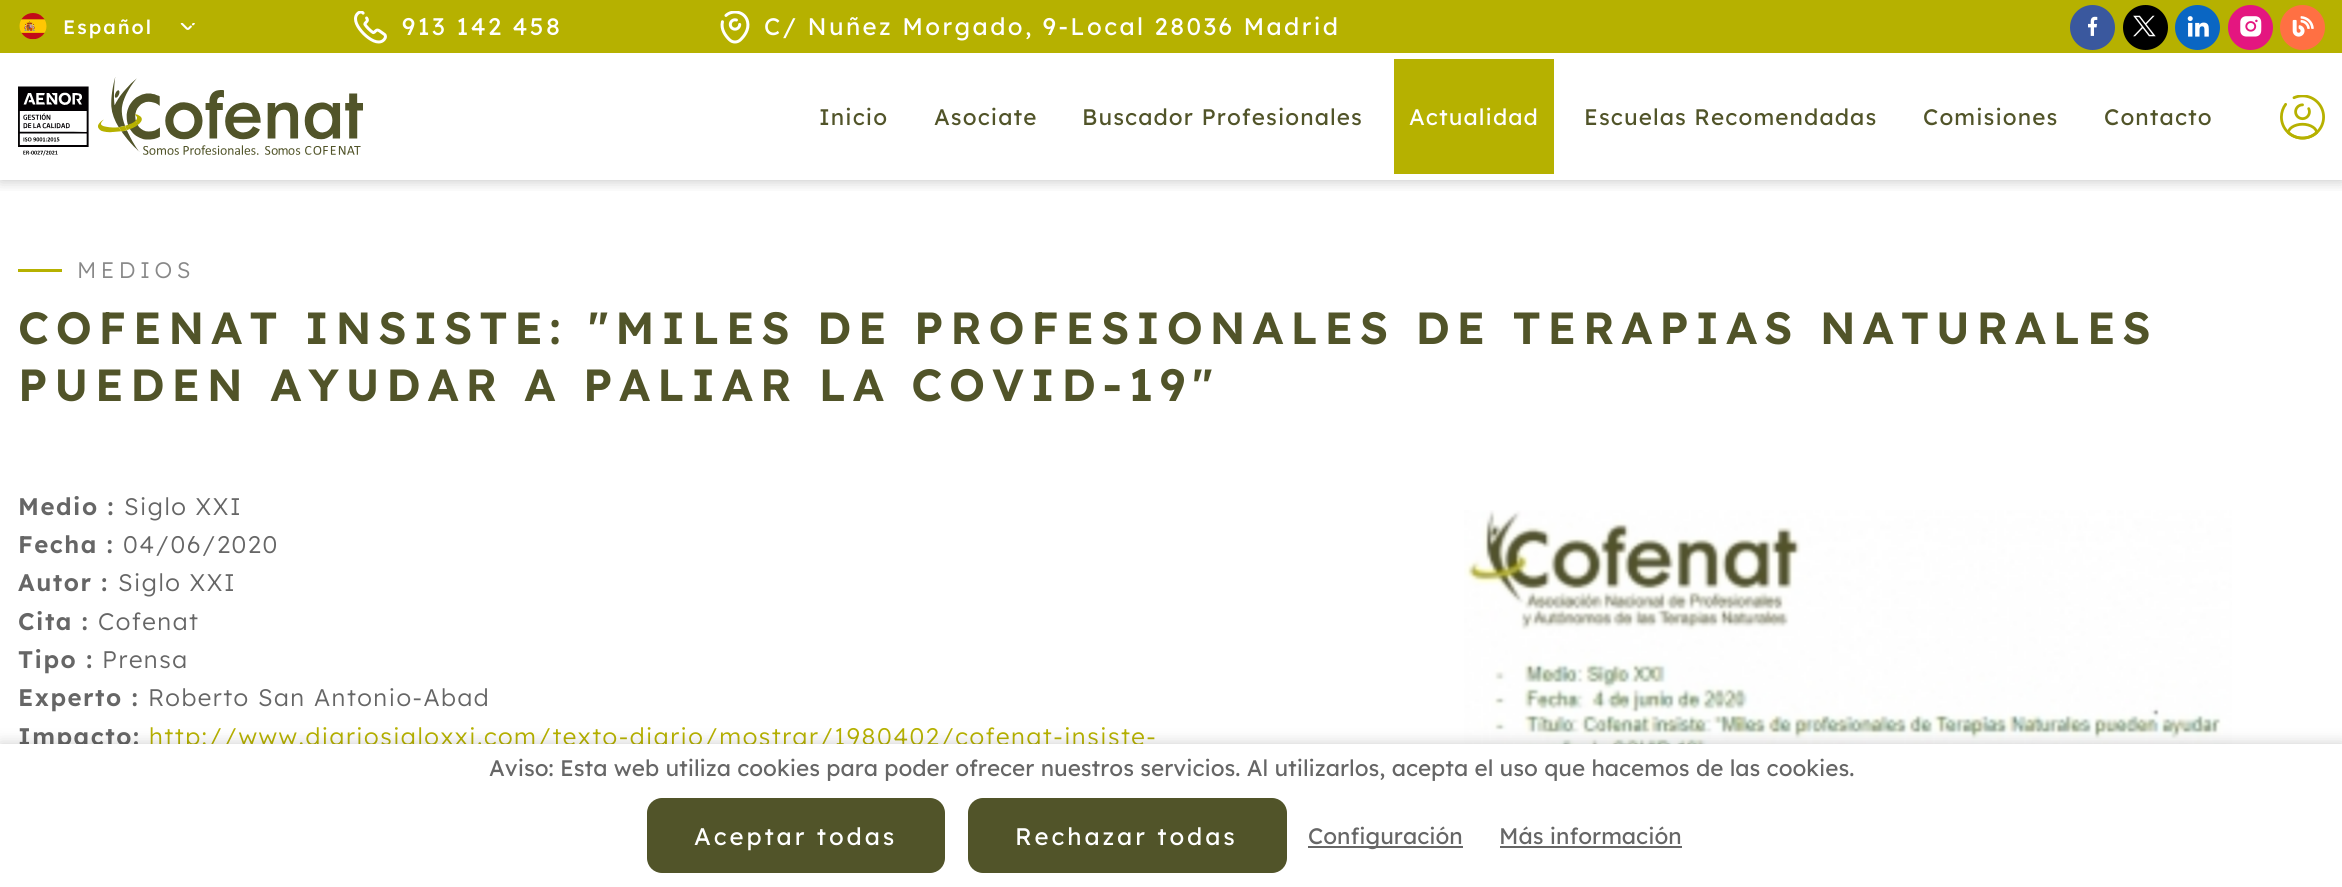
#include <cairo.h>
#include <math.h>
#include <stddef.h>

typedef struct { double x, y; const char *s; } line_t;

static void ink(cairo_t *ctx, unsigned color) {
    cairo_set_source_rgb(ctx, (color >> 16) / 255.0, (color >> 8 & 255) / 255.0, (color & 255) / 255.0);
}

static void write_spaced(cairo_t *ctx, double x, double y, const char *s, double letter, double word) {
    cairo_move_to(ctx, x, y);
    while (*s) {
        char ch[5] = {0};
        int n = 0;
        do ch[n++] = *s++; while ((*s & 0xC0) == 0x80);
        cairo_show_text(ctx, ch);
        cairo_rel_move_to(ctx, letter + word * (*ch == ' '), 0);
    }
}

static void round_path(cairo_t *ctx, double x, double y, double w, double h, double r) {
    cairo_new_sub_path(ctx);
    cairo_arc(ctx, x + w - r, y + h - r, r, 0, M_PI / 2);
    cairo_arc(ctx, x + r, y + h - r, r, M_PI / 2, M_PI);
    cairo_arc(ctx, x + r, y + r, r, M_PI, 1.5 * M_PI);
    cairo_arc(ctx, x + w - r, y + r, r, 1.5 * M_PI, 2 * M_PI);
    cairo_close_path(ctx);
}

static void blur_box(cairo_t *ctx, double x, double y, double w, double h, double r, double blur, double alpha) {
    cairo_push_group_with_content(ctx, CAIRO_CONTENT_ALPHA);
    cairo_set_operator(ctx, CAIRO_OPERATOR_SOURCE);
    for (int i = 15; i >= -15 && fmin(w, h) + blur * i / 3 > 0; i -= 2) {
        double e = blur * i / 6;
        cairo_set_source_rgba(ctx, 0, 0, 0, alpha * erfc((i - 1) / 8.5) / 2);
        round_path(ctx, x - e, y - e, w + 2 * e, h + 2 * e, fmax(0, fmin(r + e + blur * .6, fmin(w, h) / 2 + e)));
        cairo_fill(ctx);
    }
    cairo_pattern_t *soft = cairo_pop_group(ctx);
    cairo_mask(ctx, soft);
    cairo_pattern_destroy(soft);
}

static void paste(cairo_t *ctx, const char *path, double x, double y, double w, double h) {
    cairo_surface_t *image = cairo_image_surface_create_from_png(path);
    cairo_save(ctx);
    cairo_set_source_surface(ctx, image, x, y);
    cairo_rectangle(ctx, x, y, w, h);
    cairo_fill(ctx);
    cairo_restore(ctx);
    cairo_surface_destroy(image);
}

int main(void) {
    cairo_surface_t *surface = cairo_image_surface_create(CAIRO_FORMAT_RGB24, 2342, 887);
    cairo_t *ctx = cairo_create(surface);
    cairo_font_options_t *options = cairo_font_options_create();
    cairo_font_options_set_hint_metrics(options, CAIRO_HINT_METRICS_OFF);
    cairo_font_options_set_hint_style(options, CAIRO_HINT_STYLE_NONE);
    cairo_set_font_options(ctx, options);
    cairo_set_miter_limit(ctx, 4);
    ink(ctx, 0xFFFFFF);
    cairo_paint(ctx);
    cairo_save(ctx);
    cairo_rectangle(ctx, 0, 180, 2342, 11);
    cairo_clip(ctx);
    ink(ctx, 0x000000);
    blur_box(ctx, 0, 0, 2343, 180, 0, 7.5, 0.25);
    cairo_restore(ctx);
    ink(ctx, 0xB6B100);
    cairo_rectangle(ctx, 0, 0, 2342, 53);
    cairo_fill(ctx);
    paste(ctx, "media/1.png", 19, 13, 28, 27);
    cairo_select_font_face(ctx, "Lexend Medium", CAIRO_FONT_SLANT_NORMAL, CAIRO_FONT_WEIGHT_NORMAL);
    cairo_set_font_size(ctx, 19.5);
    ink(ctx, 0xFFFFFF);
    write_spaced(ctx, 63, 34, "Español", 2, 0);
    paste(ctx, "media/2.png", 180, 23, 15, 7);
    paste(ctx, "media/3.png", 354, 11, 33, 33);
    cairo_select_font_face(ctx, "Lexend", CAIRO_FONT_SLANT_NORMAL, CAIRO_FONT_WEIGHT_NORMAL);
    cairo_set_font_size(ctx, 24);
    write_spaced(ctx, 402, 35, "913 142 458", 2.4, 0);
    paste(ctx, "media/4.png", 720, 11, 30, 33);
    write_spaced(ctx, 764, 35, "C/ Nuñez Morgado, 9-Local 28036 Madrid", 2.4, 0);
    ink(ctx, 0x3A589E);
    cairo_new_path(ctx);
    cairo_arc(ctx, 2092.5, 27.5, 22.5, 0, 2 * M_PI);
    cairo_fill(ctx);
    paste(ctx, "media/5.png", 2088, 16, 10, 20);
    ink(ctx, 0x000000);
    cairo_arc(ctx, 2145.5, 27.5, 22.5, 0, 2 * M_PI);
    cairo_fill(ctx);
    paste(ctx, "media/6.png", 2133, 15, 23, 22);
    ink(ctx, 0x0A66C3);
    cairo_arc(ctx, 2197.5, 27.5, 22.5, 0, 2 * M_PI);
    cairo_fill(ctx);
    paste(ctx, "media/7.png", 2187, 16, 22, 21);
    ink(ctx, 0xE41680);
    cairo_arc(ctx, 2250.5, 27.5, 22.5, 0, 2 * M_PI);
    cairo_fill(ctx);
    paste(ctx, "media/8.png", 2240, 16, 22, 21);
    ink(ctx, 0xFF7043);
    cairo_arc(ctx, 2302.5, 27.5, 22.5, 0, 2 * M_PI);
    cairo_fill(ctx);
    paste(ctx, "media/9.png", 2292, 16, 22, 21);
    paste(ctx, "media/10.png", 18, 77, 345, 79);
    cairo_set_font_size(ctx, 22.5);
    ink(ctx, 0x515429);
    {
        static const line_t items[] = {
            {819, 125, "Inicio"},
            {934, 125, "Asociate"},
            {1082, 125, "Buscador Profesionales"},
        };
        for (size_t i = 0; i < sizeof items / sizeof *items; i++) {
            write_spaced(ctx, items[i].x, items[i].y, items[i].s, 1.1, 0);
        }
    }
    ink(ctx, 0xB6B100);
    cairo_rectangle(ctx, 1394, 59, 160, 115);
    cairo_fill(ctx);
    ink(ctx, 0xFFFFFF);
    write_spaced(ctx, 1409, 125, "Actualidad", 1.1, 0);
    ink(ctx, 0x515429);
    {
        static const line_t items[] = {
            {1584, 125, "Escuelas Recomendadas"},
            {1923, 125, "Comisiones"},
            {2104, 125, "Contacto"},
        };
        for (size_t i = 0; i < sizeof items / sizeof *items; i++) {
            write_spaced(ctx, items[i].x, items[i].y, items[i].s, 1.1, 0);
        }
    }
    paste(ctx, "media/11.png", 2280, 95, 45, 45);
    ink(ctx, 0xB6B100);
    cairo_rectangle(ctx, 18, 269, 44, 3);
    cairo_fill(ctx);
    cairo_select_font_face(ctx, "Lexend Light", CAIRO_FONT_SLANT_NORMAL, CAIRO_FONT_WEIGHT_NORMAL);
    ink(ctx, 0x888888);
    write_spaced(ctx, 77, 278, "MEDIOS", 4.5, 0);
    cairo_select_font_face(ctx, "Lexend SemiBold", CAIRO_FONT_SLANT_NORMAL, CAIRO_FONT_WEIGHT_NORMAL);
    cairo_set_font_size(ctx, 45);
    ink(ctx, 0x515429);
    write_spaced(ctx, 18, 344, "COFENAT INSISTE: \"MILES DE PROFESIONALES DE TERAPIAS NATURALES", 6.75, 0);
    write_spaced(ctx, 18, 401, "PUEDEN AYUDAR A PALIAR LA COVID-19\"", 6.75, 0);
    cairo_set_font_size(ctx, 24);
    ink(ctx, 0x666666);
    write_spaced(ctx, 18, 515, "Medio :", 1.5, 0);
    cairo_select_font_face(ctx, "Lexend Light", CAIRO_FONT_SLANT_NORMAL, CAIRO_FONT_WEIGHT_NORMAL);
    write_spaced(ctx, 124, 515, "Siglo XXI", 1.5, 0);
    cairo_select_font_face(ctx, "Lexend SemiBold", CAIRO_FONT_SLANT_NORMAL, CAIRO_FONT_WEIGHT_NORMAL);
    write_spaced(ctx, 18, 553, "Fecha :", 1.5, 0);
    cairo_select_font_face(ctx, "Lexend Light", CAIRO_FONT_SLANT_NORMAL, CAIRO_FONT_WEIGHT_NORMAL);
    write_spaced(ctx, 123, 553, "04/06/2020", 1.5, 0);
    cairo_select_font_face(ctx, "Lexend SemiBold", CAIRO_FONT_SLANT_NORMAL, CAIRO_FONT_WEIGHT_NORMAL);
    write_spaced(ctx, 18, 591, "Autor :", 1.5, 0);
    cairo_select_font_face(ctx, "Lexend Light", CAIRO_FONT_SLANT_NORMAL, CAIRO_FONT_WEIGHT_NORMAL);
    write_spaced(ctx, 118, 591, "Siglo XXI", 1.5, 0);
    cairo_select_font_face(ctx, "Lexend SemiBold", CAIRO_FONT_SLANT_NORMAL, CAIRO_FONT_WEIGHT_NORMAL);
    write_spaced(ctx, 18, 630, "Cita :", 1.5, 0);
    cairo_select_font_face(ctx, "Lexend Light", CAIRO_FONT_SLANT_NORMAL, CAIRO_FONT_WEIGHT_NORMAL);
    write_spaced(ctx, 98, 630, "Cofenat", 1.5, 0);
    cairo_select_font_face(ctx, "Lexend SemiBold", CAIRO_FONT_SLANT_NORMAL, CAIRO_FONT_WEIGHT_NORMAL);
    write_spaced(ctx, 18, 668, "Tipo :", 1.5, 0);
    cairo_select_font_face(ctx, "Lexend Light", CAIRO_FONT_SLANT_NORMAL, CAIRO_FONT_WEIGHT_NORMAL);
    write_spaced(ctx, 102, 668, "Prensa", 1.5, 0);
    cairo_select_font_face(ctx, "Lexend SemiBold", CAIRO_FONT_SLANT_NORMAL, CAIRO_FONT_WEIGHT_NORMAL);
    write_spaced(ctx, 18, 706, "Experto :", 1.5, 0);
    cairo_select_font_face(ctx, "Lexend Light", CAIRO_FONT_SLANT_NORMAL, CAIRO_FONT_WEIGHT_NORMAL);
    write_spaced(ctx, 148, 706, "Roberto San Antonio-Abad", 1.5, 0);
    cairo_select_font_face(ctx, "Lexend SemiBold", CAIRO_FONT_SLANT_NORMAL, CAIRO_FONT_WEIGHT_NORMAL);
    write_spaced(ctx, 18, 745, "Impacto:", 1.5, 0);
    cairo_select_font_face(ctx, "Lexend Light", CAIRO_FONT_SLANT_NORMAL, CAIRO_FONT_WEIGHT_NORMAL);
    ink(ctx, 0xB6B100);
    write_spaced(ctx, 149, 745, "http://www.diariosigloxxi.com/texto-diario/mostrar/1980402/cofenat-insiste-", 1.5, 0);
    paste(ctx, "media/12.png", 1464, 510, 768, 234);
    ink(ctx, 0x000000);
    blur_box(ctx, 0, 744, 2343, 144, 0, 7.5, 0.2);
    ink(ctx, 0xFFFFFF);
    cairo_rectangle(ctx, 0, 744, 2342, 143);
    cairo_fill(ctx);
    cairo_select_font_face(ctx, "Lexend", CAIRO_FONT_SLANT_NORMAL, CAIRO_FONT_WEIGHT_NORMAL);
    cairo_set_font_size(ctx, 22.5);
    ink(ctx, 0x666666);
    cairo_move_to(ctx, 489, 776);
    cairo_show_text(ctx, "Aviso: Esta web utiliza cookies para poder ofrecer nuestros servicios. Al utilizarlos, acepta el uso que hacemos de las cookies.");
    ink(ctx, 0x515429);
    round_path(ctx, 647, 798, 298, 75, 15);
    cairo_fill(ctx);
    cairo_set_font_size(ctx, 24);
    ink(ctx, 0xFFFFFF);
    write_spaced(ctx, 694, 845, "Aceptar todas", 2.9, 0);
    ink(ctx, 0x515429);
    round_path(ctx, 968, 798, 319, 75, 15);
    cairo_fill(ctx);
    ink(ctx, 0xFFFFFF);
    write_spaced(ctx, 1015, 845, "Rechazar todas", 2.9, 0);
    ink(ctx, 0x666666);
    cairo_rectangle(ctx, 1308, 846, 155, 2);
    cairo_fill(ctx);
    cairo_set_font_size(ctx, 22.5);
    cairo_move_to(ctx, 1308, 844);
    cairo_show_text(ctx, "Configuración");
    cairo_move_to(ctx, 1499, 844);
    cairo_show_text(ctx, "Más información");
    cairo_rectangle(ctx, 1500, 846, 182, 2);
    cairo_fill(ctx);
    cairo_surface_write_to_png(surface, "image.png");
    cairo_font_options_destroy(options);
    cairo_destroy(ctx);
    cairo_surface_destroy(surface);
    return 0;
}
